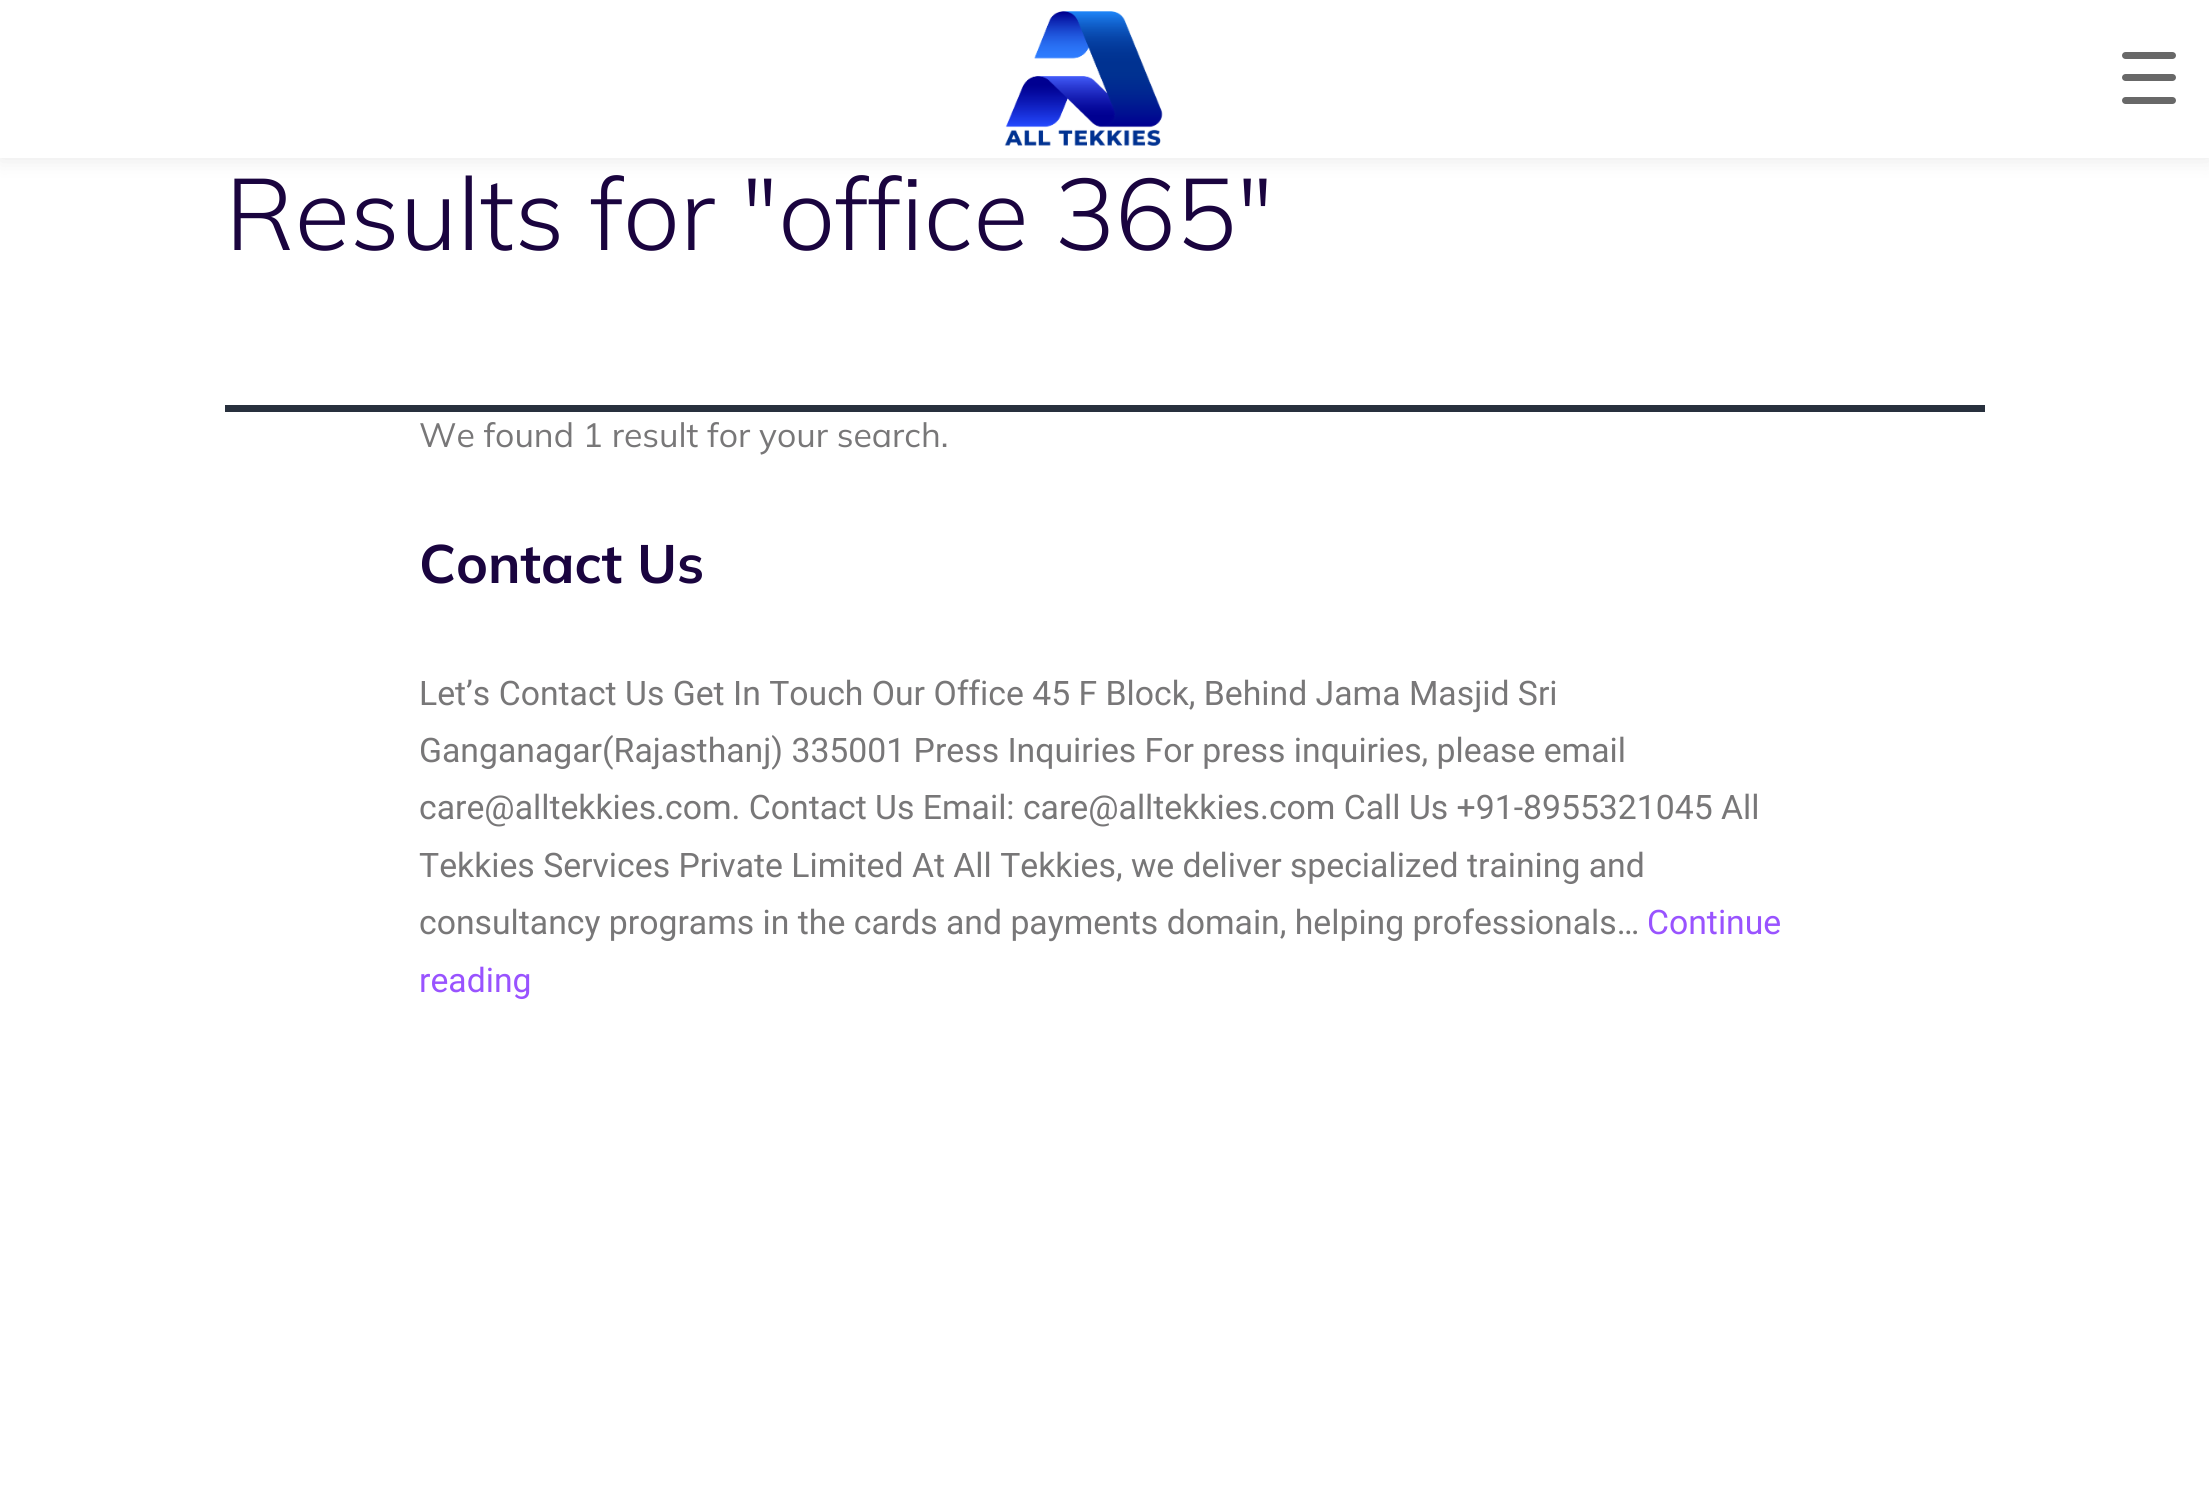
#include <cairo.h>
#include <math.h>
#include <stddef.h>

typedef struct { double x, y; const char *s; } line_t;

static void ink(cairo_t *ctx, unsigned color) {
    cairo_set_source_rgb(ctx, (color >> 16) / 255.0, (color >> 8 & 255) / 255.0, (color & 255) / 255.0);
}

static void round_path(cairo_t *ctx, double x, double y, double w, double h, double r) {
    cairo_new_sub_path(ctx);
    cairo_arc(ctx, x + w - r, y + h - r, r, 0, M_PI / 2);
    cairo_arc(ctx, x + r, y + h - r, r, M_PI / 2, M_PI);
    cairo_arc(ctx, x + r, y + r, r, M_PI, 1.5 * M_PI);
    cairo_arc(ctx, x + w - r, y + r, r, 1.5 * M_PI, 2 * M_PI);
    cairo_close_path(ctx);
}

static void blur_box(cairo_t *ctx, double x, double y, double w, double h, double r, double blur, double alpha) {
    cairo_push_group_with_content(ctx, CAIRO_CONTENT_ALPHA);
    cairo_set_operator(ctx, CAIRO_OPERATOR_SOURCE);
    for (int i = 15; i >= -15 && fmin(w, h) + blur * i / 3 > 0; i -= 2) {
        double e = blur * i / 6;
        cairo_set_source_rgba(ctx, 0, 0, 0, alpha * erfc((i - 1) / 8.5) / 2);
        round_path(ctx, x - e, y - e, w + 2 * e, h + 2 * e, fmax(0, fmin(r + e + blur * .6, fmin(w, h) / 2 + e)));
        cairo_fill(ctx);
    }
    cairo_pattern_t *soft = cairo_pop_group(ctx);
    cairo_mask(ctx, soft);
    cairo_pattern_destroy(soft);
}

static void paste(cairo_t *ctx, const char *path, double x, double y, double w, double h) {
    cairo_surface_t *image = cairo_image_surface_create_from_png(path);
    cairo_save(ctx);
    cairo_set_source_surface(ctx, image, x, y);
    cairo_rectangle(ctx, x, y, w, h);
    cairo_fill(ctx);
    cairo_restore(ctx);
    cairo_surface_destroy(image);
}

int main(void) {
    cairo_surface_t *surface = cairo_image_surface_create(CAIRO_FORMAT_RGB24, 2209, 1510);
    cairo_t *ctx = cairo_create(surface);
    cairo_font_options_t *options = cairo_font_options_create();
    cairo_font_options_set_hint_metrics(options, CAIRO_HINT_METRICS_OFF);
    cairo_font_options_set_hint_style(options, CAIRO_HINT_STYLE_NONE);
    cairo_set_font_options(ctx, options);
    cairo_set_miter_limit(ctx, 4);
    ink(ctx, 0xFFFFFF);
    cairo_paint(ctx);
    ink(ctx, 0x000000);
    blur_box(ctx, 0, 0, 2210, 158, 0, 11, 0.1);
    ink(ctx, 0xFFFFFF);
    cairo_rectangle(ctx, 0, 0, 2209, 158);
    cairo_fill(ctx);
    paste(ctx, "media/1.png", 1004, 11, 159, 135);
    ink(ctx, 0x686868);
    round_path(ctx, 2122, 74, 54, 7, 3.5);
    cairo_fill(ctx);
    round_path(ctx, 2122, 52, 54, 7, 3.5);
    cairo_fill(ctx);
    round_path(ctx, 2122, 97, 54, 7, 3.5);
    cairo_fill(ctx);
    ink(ctx, 0x28303D);
    cairo_rectangle(ctx, 225, 405, 1760, 7);
    cairo_fill(ctx);
    cairo_select_font_face(ctx, "Mulish Light", CAIRO_FONT_SLANT_NORMAL, CAIRO_FONT_WEIGHT_NORMAL);
    cairo_set_font_size(ctx, 101.25);
    ink(ctx, 0x1A043F);
    cairo_move_to(ctx, 225, 250);
    cairo_show_text(ctx, "Results for \"office 365\"");
    cairo_select_font_face(ctx, "Mulish", CAIRO_FONT_SLANT_NORMAL, CAIRO_FONT_WEIGHT_NORMAL);
    cairo_set_font_size(ctx, 33.75);
    ink(ctx, 0x787778);
    cairo_move_to(ctx, 419, 447);
    cairo_show_text(ctx, "We found 1 result for your search.");
    cairo_select_font_face(ctx, "Mulish", CAIRO_FONT_SLANT_NORMAL, CAIRO_FONT_WEIGHT_BOLD);
    cairo_set_font_size(ctx, 54);
    ink(ctx, 0x1A043F);
    cairo_move_to(ctx, 419, 583);
    cairo_show_text(ctx, "Contact Us");
    cairo_select_font_face(ctx, "Roboto", CAIRO_FONT_SLANT_NORMAL, CAIRO_FONT_WEIGHT_NORMAL);
    cairo_set_font_size(ctx, 33.75);
    ink(ctx, 0x787778);
    {
        static const line_t items[] = {
            {419, 705, "Let’s Contact Us Get In Touch Our Office 45 F Block, Behind Jama Masjid Sri"},
            {419, 762, "Ganganagar(Rajasthanj) 335001 Press Inquiries For press inquiries, please email"},
            {419, 819, "care@alltekkies.com. Contact Us Email: care@alltekkies.com Call Us +91-8955321045 All"},
            {419, 877, "Tekkies Services Private Limited At All Tekkies, we deliver specialized training and"},
            {419, 934, "consultancy programs in the cards and payments domain, helping professionals…"},
        };
        for (size_t i = 0; i < sizeof items / sizeof *items; i++) {
            cairo_move_to(ctx, items[i].x, items[i].y);
            cairo_show_text(ctx, items[i].s);
        }
    }
    ink(ctx, 0x9953FF);
    cairo_move_to(ctx, 1647, 934);
    cairo_show_text(ctx, "Continue");
    cairo_move_to(ctx, 419, 992);
    cairo_show_text(ctx, "reading");
    cairo_surface_write_to_png(surface, "image.png");
    cairo_font_options_destroy(options);
    cairo_destroy(ctx);
    cairo_surface_destroy(surface);
    return 0;
}
